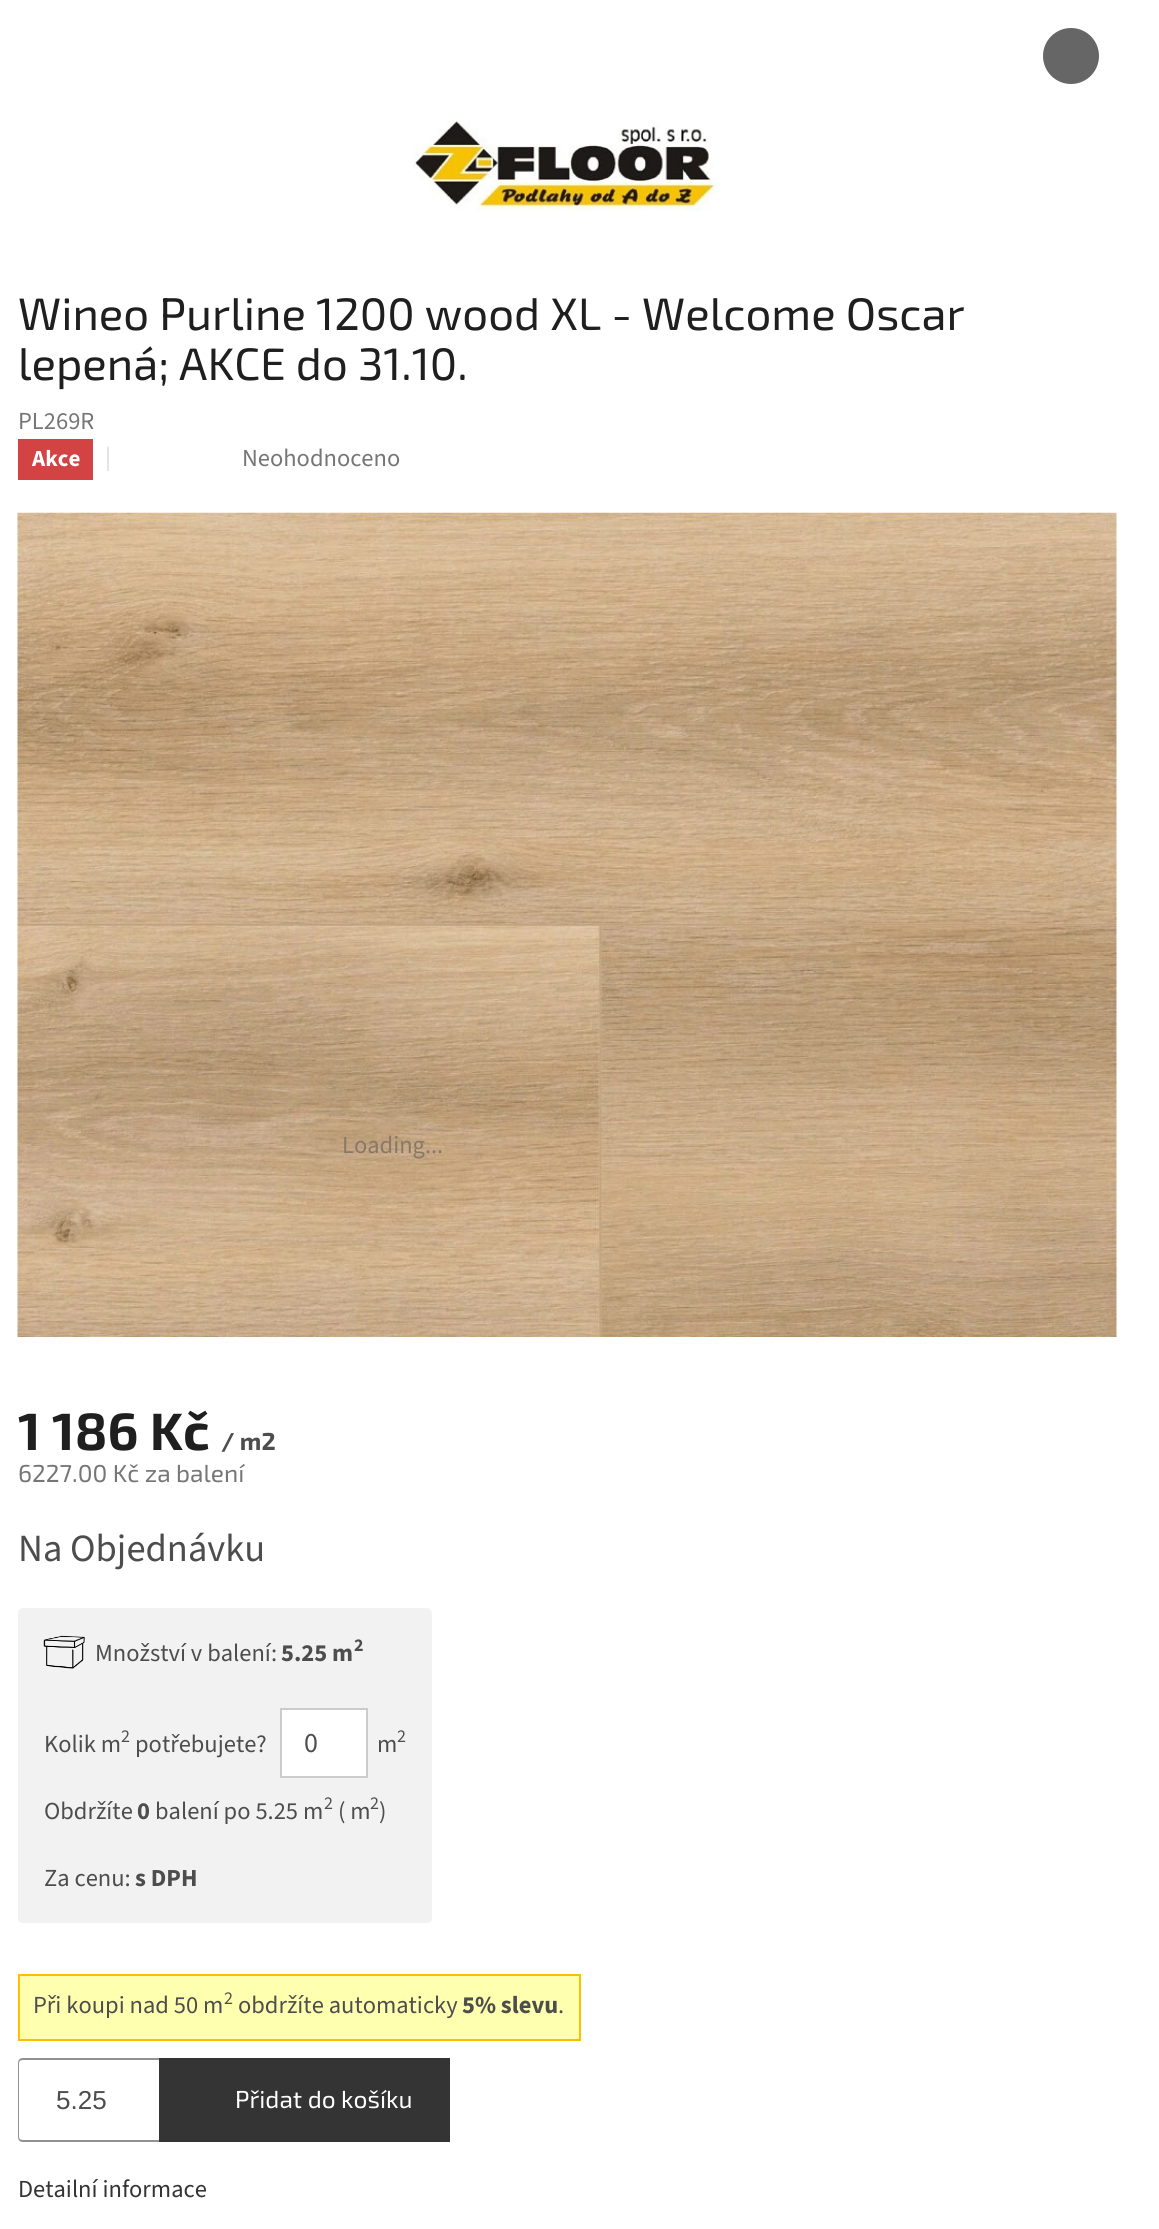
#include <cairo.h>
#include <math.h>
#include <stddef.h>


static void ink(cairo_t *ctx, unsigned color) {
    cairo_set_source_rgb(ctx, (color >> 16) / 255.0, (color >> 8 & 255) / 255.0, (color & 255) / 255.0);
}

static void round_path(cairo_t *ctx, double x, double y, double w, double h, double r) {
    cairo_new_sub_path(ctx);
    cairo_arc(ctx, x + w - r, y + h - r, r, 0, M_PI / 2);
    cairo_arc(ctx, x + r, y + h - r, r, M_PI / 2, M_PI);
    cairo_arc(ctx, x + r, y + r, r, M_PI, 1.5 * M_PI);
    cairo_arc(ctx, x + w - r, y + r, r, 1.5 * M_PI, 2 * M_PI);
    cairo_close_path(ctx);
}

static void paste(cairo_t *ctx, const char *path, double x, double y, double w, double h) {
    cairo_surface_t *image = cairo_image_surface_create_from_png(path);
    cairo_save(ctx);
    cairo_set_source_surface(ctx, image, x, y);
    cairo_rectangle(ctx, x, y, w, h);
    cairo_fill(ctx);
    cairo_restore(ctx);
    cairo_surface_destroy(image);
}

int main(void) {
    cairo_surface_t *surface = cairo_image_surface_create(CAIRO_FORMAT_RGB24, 1159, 2229);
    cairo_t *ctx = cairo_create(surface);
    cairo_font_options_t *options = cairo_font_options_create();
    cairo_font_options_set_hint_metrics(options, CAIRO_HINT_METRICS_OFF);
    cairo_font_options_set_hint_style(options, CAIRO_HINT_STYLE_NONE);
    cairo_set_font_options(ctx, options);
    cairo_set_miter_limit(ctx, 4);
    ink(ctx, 0xFFFFFF);
    cairo_paint(ctx);
    ink(ctx, 0x666666);
    cairo_arc(ctx, 1071, 56, 28, 0, 2 * M_PI);
    cairo_fill(ctx);
    paste(ctx, "media/1.png", 413, 120, 304, 91);
    cairo_select_font_face(ctx, "Exo 2", CAIRO_FONT_SLANT_NORMAL, CAIRO_FONT_WEIGHT_NORMAL);
    cairo_set_font_size(ctx, 45.5);
    ink(ctx, 0x1F1F1F);
    cairo_move_to(ctx, 18, 330);
    cairo_show_text(ctx, "Wineo Purline 1200 wood XL - Welcome Oscar");
    cairo_move_to(ctx, 18, 380);
    cairo_show_text(ctx, "lepená; AKCE do 31.10.");
    cairo_select_font_face(ctx, "Source Sans 3", CAIRO_FONT_SLANT_NORMAL, CAIRO_FONT_WEIGHT_NORMAL);
    cairo_set_font_size(ctx, 24.5);
    ink(ctx, 0x767676);
    cairo_move_to(ctx, 18, 429);
    cairo_show_text(ctx, "PL269R");
    ink(ctx, 0xD34343);
    cairo_rectangle(ctx, 18, 439, 75, 41);
    cairo_fill(ctx);
    cairo_select_font_face(ctx, "Source Sans 3", CAIRO_FONT_SLANT_NORMAL, CAIRO_FONT_WEIGHT_BOLD);
    cairo_set_font_size(ctx, 23);
    ink(ctx, 0xFFFFFF);
    cairo_move_to(ctx, 32, 466);
    cairo_show_text(ctx, "Akce");
    cairo_select_font_face(ctx, "Source Sans 3", CAIRO_FONT_SLANT_NORMAL, CAIRO_FONT_WEIGHT_NORMAL);
    cairo_set_font_size(ctx, 24.5);
    ink(ctx, 0xDADADA);
    cairo_move_to(ctx, 105, 465);
    cairo_show_text(ctx, "|");
    ink(ctx, 0x767676);
    cairo_move_to(ctx, 242, 466);
    cairo_show_text(ctx, "Neohodnoceno");
    paste(ctx, "media/2.png", 17, 512, 1100, 825);
    ink(ctx, 0x887967);
    cairo_move_to(ctx, 342, 1153);
    cairo_show_text(ctx, "Loading...");
    cairo_select_font_face(ctx, "Exo 2", CAIRO_FONT_SLANT_NORMAL, CAIRO_FONT_WEIGHT_BOLD);
    cairo_set_font_size(ctx, 52.5);
    ink(ctx, 0x1F1F1F);
    cairo_move_to(ctx, 18, 1450);
    cairo_show_text(ctx, "1 186 Kč");
    cairo_set_font_size(ctx, 24.5);
    ink(ctx, 0x4D4D4D);
    cairo_move_to(ctx, 221, 1450);
    cairo_show_text(ctx, "/ m2");
    cairo_select_font_face(ctx, "Exo 2", CAIRO_FONT_SLANT_NORMAL, CAIRO_FONT_WEIGHT_NORMAL);
    ink(ctx, 0x767676);
    cairo_move_to(ctx, 18, 1482);
    cairo_show_text(ctx, "6227.00 Kč za balení");
    cairo_select_font_face(ctx, "Source Sans 3", CAIRO_FONT_SLANT_NORMAL, CAIRO_FONT_WEIGHT_NORMAL);
    cairo_set_font_size(ctx, 38.5);
    ink(ctx, 0x4D4D4D);
    cairo_move_to(ctx, 18, 1561);
    cairo_show_text(ctx, "Na Objednávku");
    ink(ctx, 0xF2F2F2);
    round_path(ctx, 18, 1608, 414, 315, 5);
    cairo_fill(ctx);
    paste(ctx, "media/3.png", 43, 1635, 42, 34);
    cairo_set_font_size(ctx, 24.5);
    ink(ctx, 0x4D4D4D);
    cairo_move_to(ctx, 95, 1661);
    cairo_show_text(ctx, "Množství v balení:");
    cairo_select_font_face(ctx, "Source Sans 3", CAIRO_FONT_SLANT_NORMAL, CAIRO_FONT_WEIGHT_BOLD);
    cairo_move_to(ctx, 281, 1661);
    cairo_show_text(ctx, "5.25 m");
    cairo_set_font_size(ctx, 18);
    cairo_move_to(ctx, 354, 1651);
    cairo_show_text(ctx, "2");
    cairo_select_font_face(ctx, "Source Sans 3", CAIRO_FONT_SLANT_NORMAL, CAIRO_FONT_WEIGHT_NORMAL);
    cairo_set_font_size(ctx, 24.5);
    cairo_move_to(ctx, 44, 1752);
    cairo_show_text(ctx, "Kolik m");
    cairo_set_font_size(ctx, 18);
    cairo_move_to(ctx, 121, 1742);
    cairo_show_text(ctx, "2");
    cairo_set_font_size(ctx, 24.5);
    cairo_move_to(ctx, 135, 1752);
    cairo_show_text(ctx, "potřebujete?");
    ink(ctx, 0xFFFFFF);
    cairo_rectangle(ctx, 281, 1709, 86, 68);
    cairo_fill_preserve(ctx);
    ink(ctx, 0xCCCCCC);
    cairo_stroke(ctx);
    cairo_set_font_size(ctx, 28);
    ink(ctx, 0x4D4D4D);
    cairo_move_to(ctx, 304, 1752);
    cairo_show_text(ctx, "0");
    cairo_set_font_size(ctx, 24.5);
    cairo_move_to(ctx, 377, 1752);
    cairo_show_text(ctx, "m");
    cairo_set_font_size(ctx, 18);
    cairo_move_to(ctx, 397, 1742);
    cairo_show_text(ctx, "2");
    cairo_set_font_size(ctx, 24.5);
    cairo_move_to(ctx, 44, 1819);
    cairo_show_text(ctx, "Obdržíte");
    cairo_select_font_face(ctx, "Source Sans 3", CAIRO_FONT_SLANT_NORMAL, CAIRO_FONT_WEIGHT_BOLD);
    cairo_move_to(ctx, 137, 1819);
    cairo_show_text(ctx, "0");
    cairo_select_font_face(ctx, "Source Sans 3", CAIRO_FONT_SLANT_NORMAL, CAIRO_FONT_WEIGHT_NORMAL);
    cairo_move_to(ctx, 155, 1819);
    cairo_show_text(ctx, "balení po 5.25 m");
    cairo_set_font_size(ctx, 18);
    cairo_move_to(ctx, 324, 1809);
    cairo_show_text(ctx, "2");
    cairo_set_font_size(ctx, 24.5);
    cairo_move_to(ctx, 338, 1819);
    cairo_show_text(ctx, "( m");
    cairo_set_font_size(ctx, 18);
    cairo_move_to(ctx, 370, 1809);
    cairo_show_text(ctx, "2");
    cairo_set_font_size(ctx, 24.5);
    cairo_move_to(ctx, 379, 1819);
    cairo_show_text(ctx, ")");
    cairo_move_to(ctx, 44, 1886);
    cairo_show_text(ctx, "Za cenu:");
    cairo_select_font_face(ctx, "Source Sans 3", CAIRO_FONT_SLANT_NORMAL, CAIRO_FONT_WEIGHT_BOLD);
    cairo_move_to(ctx, 135, 1886);
    cairo_show_text(ctx, "s DPH");
    ink(ctx, 0xFFFFB0);
    cairo_rectangle(ctx, 19, 1975, 561, 65);
    cairo_fill_preserve(ctx);
    ink(ctx, 0xFFBF00);
    cairo_stroke(ctx);
    cairo_select_font_face(ctx, "Source Sans 3", CAIRO_FONT_SLANT_NORMAL, CAIRO_FONT_WEIGHT_NORMAL);
    ink(ctx, 0x4D4D4D);
    cairo_move_to(ctx, 33, 2013);
    cairo_show_text(ctx, "Při koupi nad 50 m");
    cairo_set_font_size(ctx, 18);
    cairo_move_to(ctx, 224, 2004);
    cairo_show_text(ctx, "2");
    cairo_set_font_size(ctx, 24.5);
    cairo_move_to(ctx, 238, 2013);
    cairo_show_text(ctx, "obdržíte automaticky");
    cairo_select_font_face(ctx, "Source Sans 3", CAIRO_FONT_SLANT_NORMAL, CAIRO_FONT_WEIGHT_BOLD);
    cairo_move_to(ctx, 462, 2013);
    cairo_show_text(ctx, "5% slevu");
    cairo_select_font_face(ctx, "Source Sans 3", CAIRO_FONT_SLANT_NORMAL, CAIRO_FONT_WEIGHT_NORMAL);
    cairo_move_to(ctx, 558, 2013);
    cairo_show_text(ctx, ".");
    ink(ctx, 0x919191);
    cairo_set_fill_rule(ctx, CAIRO_FILL_RULE_EVEN_ODD);
    cairo_new_path(ctx);
    cairo_move_to(ctx, 23, 2058);
    cairo_line_to(ctx, 159, 2058);
    cairo_line_to(ctx, 159, 2142);
    cairo_line_to(ctx, 23, 2142);
    cairo_curve_to(ctx, 20, 2142, 18, 2140, 18, 2137);
    cairo_line_to(ctx, 18, 2063);
    cairo_curve_to(ctx, 18, 2060, 20, 2058, 23, 2058);
    cairo_close_path(ctx);
    cairo_move_to(ctx, 23, 2060);
    cairo_line_to(ctx, 159, 2060);
    cairo_line_to(ctx, 159, 2140);
    cairo_line_to(ctx, 23, 2140);
    cairo_curve_to(ctx, 21, 2140, 19, 2139, 19, 2137);
    cairo_line_to(ctx, 19, 2063);
    cairo_curve_to(ctx, 19, 2061, 21, 2060, 23, 2060);
    cairo_close_path(ctx);
    cairo_fill(ctx);
    cairo_select_font_face(ctx, "Liberation Sans", CAIRO_FONT_SLANT_NORMAL, CAIRO_FONT_WEIGHT_NORMAL);
    cairo_set_font_size(ctx, 26);
    ink(ctx, 0x4D4D4D);
    cairo_move_to(ctx, 56, 2109);
    cairo_show_text(ctx, "5.25");
    ink(ctx, 0x343434);
    cairo_rectangle(ctx, 159, 2058, 291, 84);
    cairo_fill(ctx);
    cairo_select_font_face(ctx, "Exo 2", CAIRO_FONT_SLANT_NORMAL, CAIRO_FONT_WEIGHT_NORMAL);
    cairo_set_font_size(ctx, 24.5);
    ink(ctx, 0xFFFFFF);
    cairo_move_to(ctx, 235, 2108);
    cairo_show_text(ctx, "Přidat do košíku");
    cairo_select_font_face(ctx, "Source Sans 3", CAIRO_FONT_SLANT_NORMAL, CAIRO_FONT_WEIGHT_NORMAL);
    ink(ctx, 0x343434);
    cairo_move_to(ctx, 18, 2197);
    cairo_show_text(ctx, "Detailní informace");
    cairo_surface_write_to_png(surface, "image.png");
    cairo_font_options_destroy(options);
    cairo_destroy(ctx);
    cairo_surface_destroy(surface);
    return 0;
}
